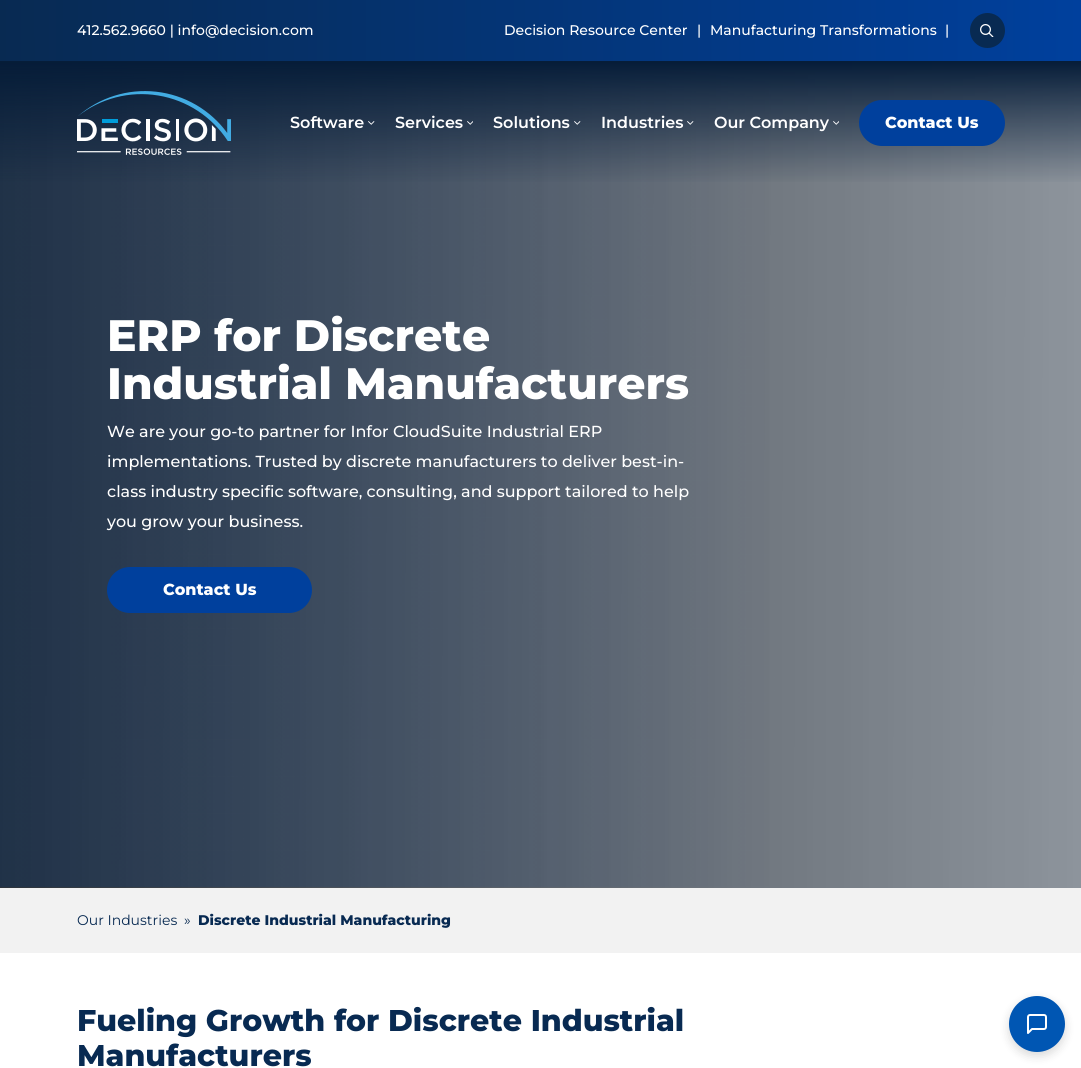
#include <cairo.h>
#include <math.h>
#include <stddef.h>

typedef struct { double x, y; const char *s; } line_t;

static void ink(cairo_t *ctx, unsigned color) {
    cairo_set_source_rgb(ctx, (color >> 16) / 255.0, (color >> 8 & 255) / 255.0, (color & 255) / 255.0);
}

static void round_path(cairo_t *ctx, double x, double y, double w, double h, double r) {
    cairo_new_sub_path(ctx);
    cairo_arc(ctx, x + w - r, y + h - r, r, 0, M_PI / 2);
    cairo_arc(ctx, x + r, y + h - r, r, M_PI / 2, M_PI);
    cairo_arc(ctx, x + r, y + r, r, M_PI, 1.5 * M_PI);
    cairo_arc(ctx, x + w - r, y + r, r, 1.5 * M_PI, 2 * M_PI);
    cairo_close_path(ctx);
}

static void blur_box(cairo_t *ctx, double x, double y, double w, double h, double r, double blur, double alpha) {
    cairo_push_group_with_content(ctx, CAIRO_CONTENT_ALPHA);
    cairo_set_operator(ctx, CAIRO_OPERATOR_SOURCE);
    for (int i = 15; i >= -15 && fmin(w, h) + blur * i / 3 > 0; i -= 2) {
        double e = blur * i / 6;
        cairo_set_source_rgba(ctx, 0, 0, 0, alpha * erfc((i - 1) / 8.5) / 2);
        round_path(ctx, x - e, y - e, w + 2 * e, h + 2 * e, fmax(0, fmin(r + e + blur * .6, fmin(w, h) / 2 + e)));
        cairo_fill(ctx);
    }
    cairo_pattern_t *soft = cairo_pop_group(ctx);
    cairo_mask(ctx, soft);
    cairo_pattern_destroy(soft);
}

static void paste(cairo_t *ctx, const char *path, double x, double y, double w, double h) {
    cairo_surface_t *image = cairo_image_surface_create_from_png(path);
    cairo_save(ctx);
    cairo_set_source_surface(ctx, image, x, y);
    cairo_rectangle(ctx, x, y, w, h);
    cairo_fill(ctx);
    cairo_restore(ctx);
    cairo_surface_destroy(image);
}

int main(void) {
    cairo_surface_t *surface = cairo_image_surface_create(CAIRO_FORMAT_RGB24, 1081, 1068);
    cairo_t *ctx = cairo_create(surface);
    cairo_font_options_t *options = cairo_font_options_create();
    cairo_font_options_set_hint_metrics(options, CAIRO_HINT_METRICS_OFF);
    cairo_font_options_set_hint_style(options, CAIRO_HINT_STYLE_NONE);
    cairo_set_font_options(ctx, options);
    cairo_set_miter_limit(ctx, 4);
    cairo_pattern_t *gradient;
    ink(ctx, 0xFFFFFF);
    cairo_paint(ctx);
    gradient = cairo_pattern_create_linear(0, 31, 1081, 30);
    cairo_pattern_add_color_stop_rgba(gradient, 0, 0.031, 0.165, 0.322, 1);
    cairo_pattern_add_color_stop_rgba(gradient, 1, 0, 0.251, 0.616, 1);
    cairo_set_source(ctx, gradient);
    cairo_pattern_destroy(gradient);
    cairo_rectangle(ctx, 0, 0, 1081, 61);
    cairo_fill(ctx);
    cairo_select_font_face(ctx, "Montserrat Medium", CAIRO_FONT_SLANT_NORMAL, CAIRO_FONT_WEIGHT_NORMAL);
    cairo_set_font_size(ctx, 14);
    ink(ctx, 0xFFFFFF);
    {
        static const line_t items[] = {
            {77, 35, "412.562.9660 | info@decision.com"},
            {504, 35, "Decision Resource Center"},
            {697, 35, "|"},
            {710, 35, "Manufacturing Transformations"},
            {945, 35, "|"},
        };
        for (size_t i = 0; i < sizeof items / sizeof *items; i++) {
            cairo_move_to(ctx, items[i].x, items[i].y);
            cairo_show_text(ctx, items[i].s);
        }
    }
    ink(ctx, 0x082A52);
    cairo_new_path(ctx);
    cairo_arc(ctx, 987.5, 30.5, 17.5, 0, 2 * M_PI);
    cairo_fill(ctx);
    paste(ctx, "media/1.png", 980, 24, 14, 13);
    paste(ctx, "media/8.png", 0, 62, 1081, 826);
    gradient = cairo_pattern_create_linear(541, 61, 541, 185);
    cairo_pattern_add_color_stop_rgba(gradient, 0, 0.02, 0.11, 0.22, 1);
    cairo_pattern_add_color_stop_rgba(gradient, 1, 0.02, 0.11, 0.22, 0);
    cairo_set_source(ctx, gradient);
    cairo_pattern_destroy(gradient);
    cairo_rectangle(ctx, 0, 61, 1081, 121);
    cairo_fill(ctx);
    paste(ctx, "media/2.png", 77, 91, 154, 64);
    cairo_select_font_face(ctx, "Montserrat SemiBold", CAIRO_FONT_SLANT_NORMAL, CAIRO_FONT_WEIGHT_NORMAL);
    cairo_set_font_size(ctx, 16);
    ink(ctx, 0xFFFFFF);
    cairo_move_to(ctx, 290, 128);
    cairo_show_text(ctx, "Software");
    paste(ctx, "media/3.png", 368, 121, 7, 4);
    cairo_move_to(ctx, 395, 128);
    cairo_show_text(ctx, "Services");
    paste(ctx, "media/4.png", 467, 121, 6, 4);
    cairo_move_to(ctx, 493, 128);
    cairo_show_text(ctx, "Solutions");
    paste(ctx, "media/5.png", 574, 121, 7, 4);
    cairo_move_to(ctx, 601, 128);
    cairo_show_text(ctx, "Industries");
    paste(ctx, "media/6.png", 687, 121, 7, 4);
    cairo_move_to(ctx, 714, 128);
    cairo_show_text(ctx, "Our Company");
    paste(ctx, "media/7.png", 833, 121, 6, 4);
    ink(ctx, 0x00409D);
    round_path(ctx, 859, 100, 146, 46, 23);
    cairo_fill(ctx);
    cairo_select_font_face(ctx, "Montserrat ExtraBold", CAIRO_FONT_SLANT_NORMAL, CAIRO_FONT_WEIGHT_NORMAL);
    ink(ctx, 0xFFFFFF);
    cairo_move_to(ctx, 885, 128);
    cairo_show_text(ctx, "Contact Us");
    cairo_set_font_size(ctx, 44);
    cairo_move_to(ctx, 107, 351);
    cairo_show_text(ctx, "ERP for Discrete");
    cairo_move_to(ctx, 107, 399);
    cairo_show_text(ctx, "Industrial Manufacturers");
    cairo_select_font_face(ctx, "Montserrat Medium", CAIRO_FONT_SLANT_NORMAL, CAIRO_FONT_WEIGHT_NORMAL);
    cairo_set_font_size(ctx, 16);
    {
        static const line_t items[] = {
            {107, 437, "We are your go-to partner for Infor CloudSuite Industrial ERP"},
            {107, 467, "implementations. Trusted by discrete manufacturers to deliver best-in-"},
            {107, 497, "class industry specific software, consulting, and support tailored to help"},
            {107, 527, "you grow your business."},
        };
        for (size_t i = 0; i < sizeof items / sizeof *items; i++) {
            cairo_move_to(ctx, items[i].x, items[i].y);
            cairo_show_text(ctx, items[i].s);
        }
    }
    ink(ctx, 0x00409D);
    round_path(ctx, 107, 567, 205, 46, 23);
    cairo_fill(ctx);
    cairo_select_font_face(ctx, "Montserrat ExtraBold", CAIRO_FONT_SLANT_NORMAL, CAIRO_FONT_WEIGHT_NORMAL);
    ink(ctx, 0xFFFFFF);
    cairo_move_to(ctx, 163, 595);
    cairo_show_text(ctx, "Contact Us");
    ink(ctx, 0xF2F2F2);
    cairo_rectangle(ctx, 0, 888, 1081, 65);
    cairo_fill(ctx);
    cairo_select_font_face(ctx, "Montserrat", CAIRO_FONT_SLANT_NORMAL, CAIRO_FONT_WEIGHT_NORMAL);
    cairo_set_font_size(ctx, 14);
    ink(ctx, 0x082A52);
    cairo_move_to(ctx, 77, 925);
    cairo_show_text(ctx, "Our Industries");
    cairo_move_to(ctx, 184, 925);
    cairo_show_text(ctx, "»");
    cairo_select_font_face(ctx, "Montserrat ExtraBold", CAIRO_FONT_SLANT_NORMAL, CAIRO_FONT_WEIGHT_NORMAL);
    cairo_move_to(ctx, 198, 925);
    cairo_show_text(ctx, "Discrete Industrial Manufacturing");
    cairo_set_font_size(ctx, 30);
    cairo_move_to(ctx, 77, 1031);
    cairo_show_text(ctx, "Fueling Growth for Discrete Industrial");
    cairo_move_to(ctx, 77, 1066);
    cairo_show_text(ctx, "Manufacturers");
    ink(ctx, 0x000000);
    blur_box(ctx, 1009, 1000, 56, 56, 28, 5, 0.15);
    ink(ctx, 0x0056B3);
    cairo_arc(ctx, 1037, 1024, 28, 0, 2 * M_PI);
    cairo_fill(ctx);
    paste(ctx, "media/9.png", 1027, 1014, 20, 20);
    cairo_surface_write_to_png(surface, "image.png");
    cairo_font_options_destroy(options);
    cairo_destroy(ctx);
    cairo_surface_destroy(surface);
    return 0;
}
